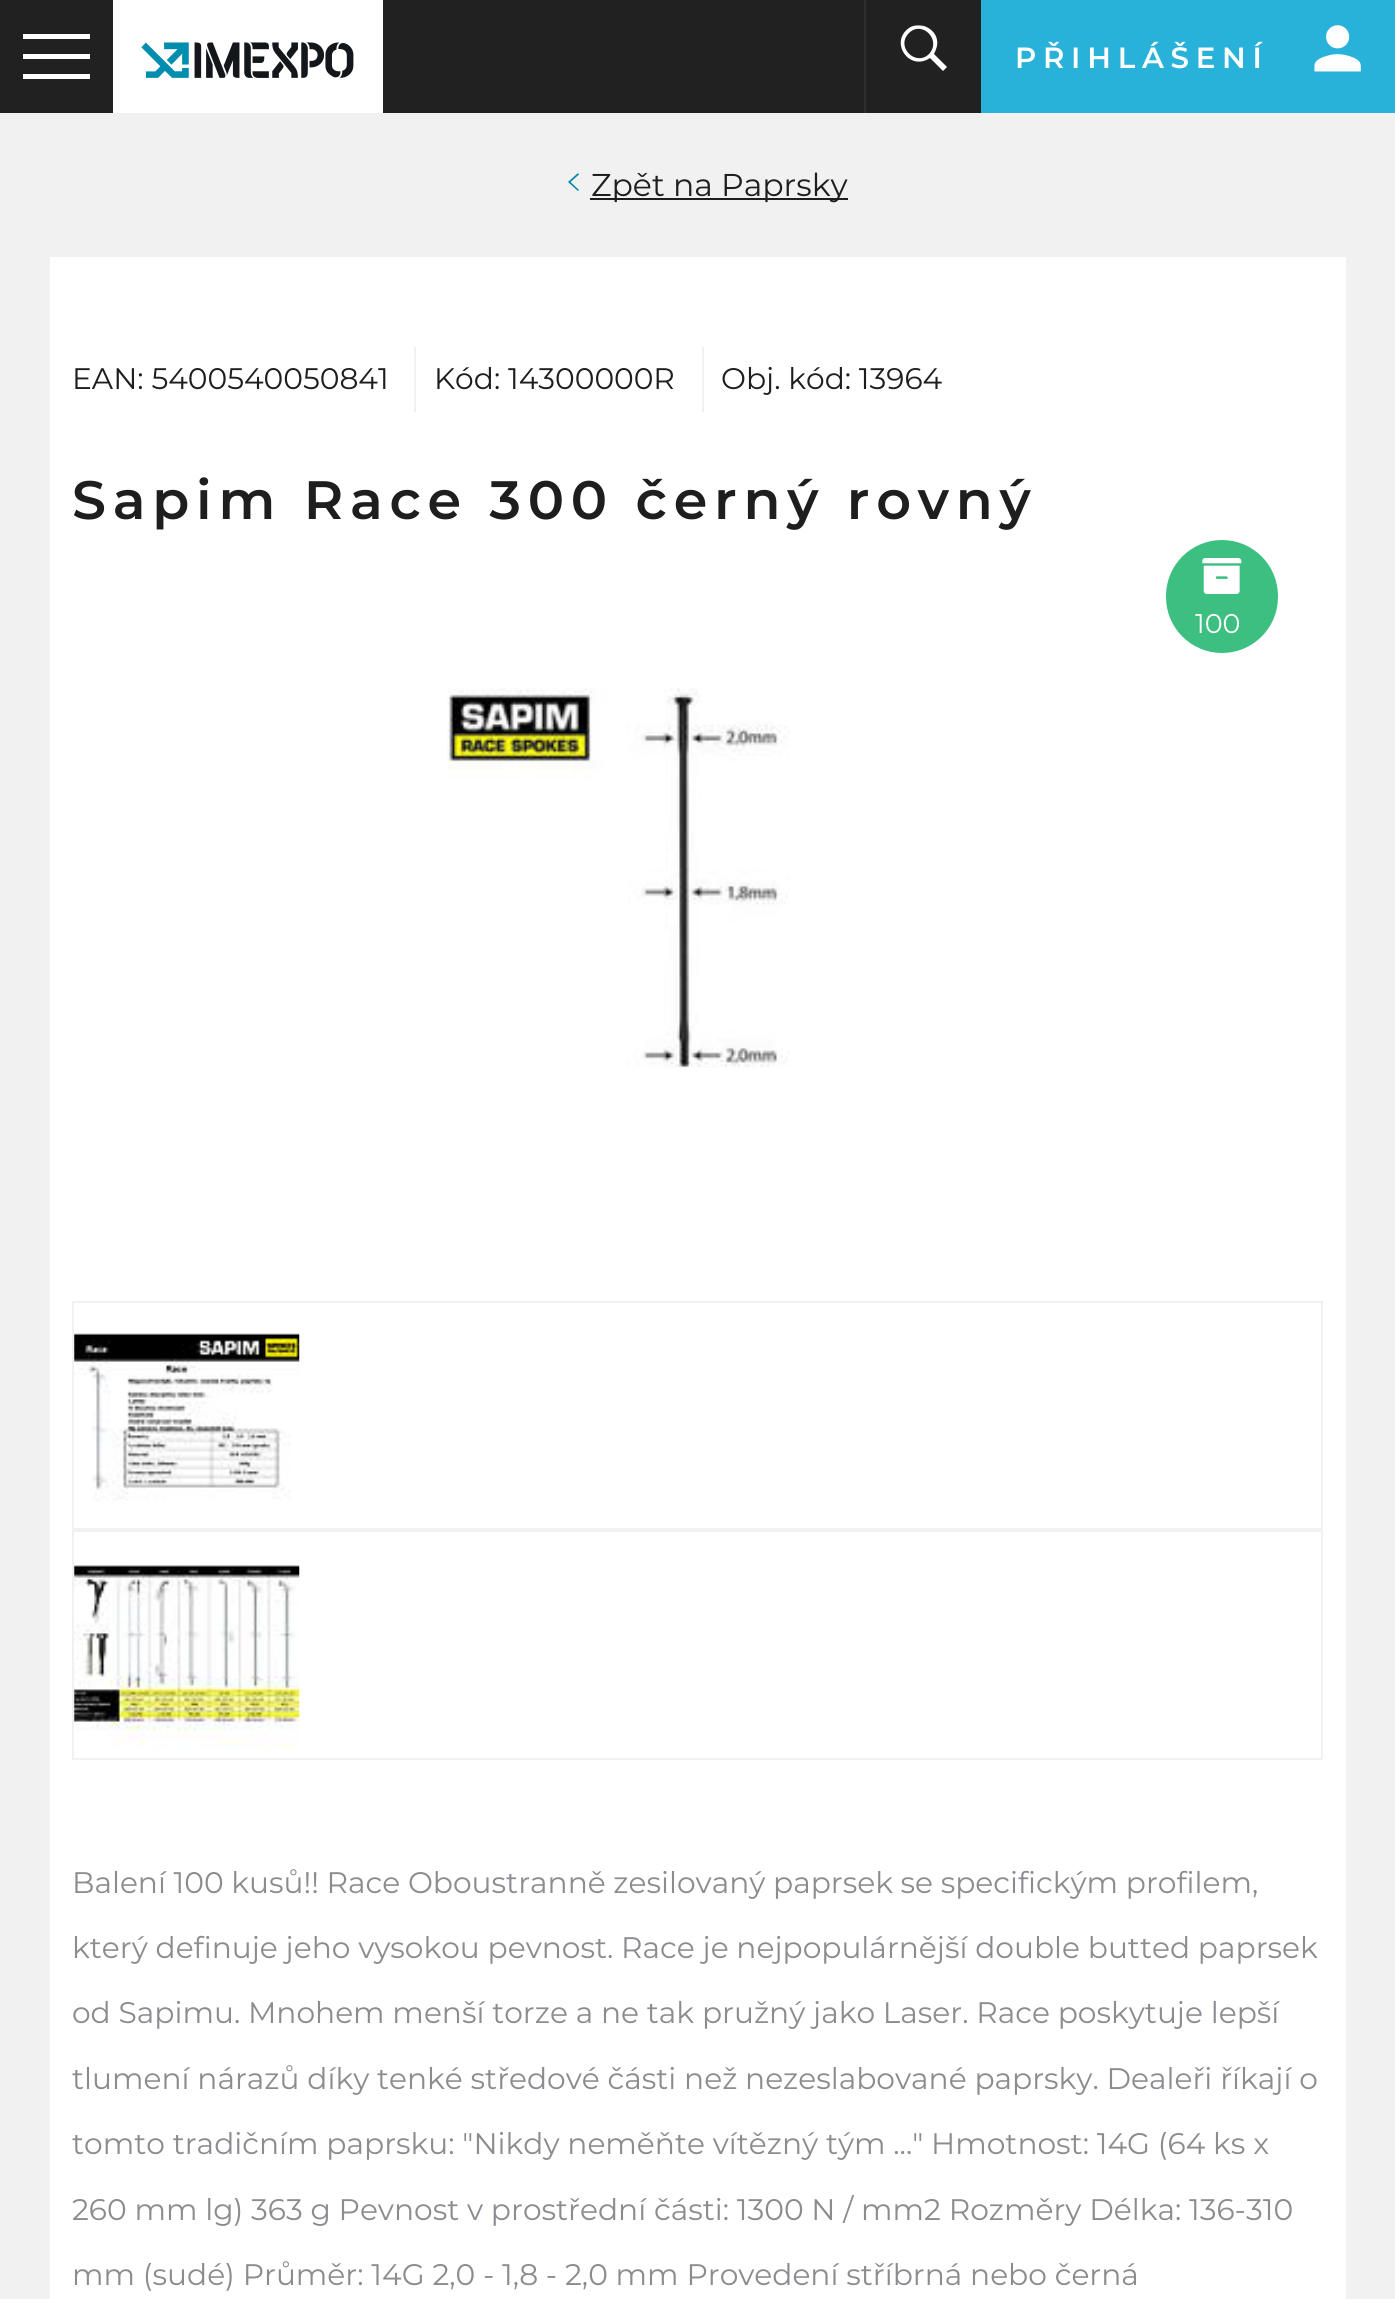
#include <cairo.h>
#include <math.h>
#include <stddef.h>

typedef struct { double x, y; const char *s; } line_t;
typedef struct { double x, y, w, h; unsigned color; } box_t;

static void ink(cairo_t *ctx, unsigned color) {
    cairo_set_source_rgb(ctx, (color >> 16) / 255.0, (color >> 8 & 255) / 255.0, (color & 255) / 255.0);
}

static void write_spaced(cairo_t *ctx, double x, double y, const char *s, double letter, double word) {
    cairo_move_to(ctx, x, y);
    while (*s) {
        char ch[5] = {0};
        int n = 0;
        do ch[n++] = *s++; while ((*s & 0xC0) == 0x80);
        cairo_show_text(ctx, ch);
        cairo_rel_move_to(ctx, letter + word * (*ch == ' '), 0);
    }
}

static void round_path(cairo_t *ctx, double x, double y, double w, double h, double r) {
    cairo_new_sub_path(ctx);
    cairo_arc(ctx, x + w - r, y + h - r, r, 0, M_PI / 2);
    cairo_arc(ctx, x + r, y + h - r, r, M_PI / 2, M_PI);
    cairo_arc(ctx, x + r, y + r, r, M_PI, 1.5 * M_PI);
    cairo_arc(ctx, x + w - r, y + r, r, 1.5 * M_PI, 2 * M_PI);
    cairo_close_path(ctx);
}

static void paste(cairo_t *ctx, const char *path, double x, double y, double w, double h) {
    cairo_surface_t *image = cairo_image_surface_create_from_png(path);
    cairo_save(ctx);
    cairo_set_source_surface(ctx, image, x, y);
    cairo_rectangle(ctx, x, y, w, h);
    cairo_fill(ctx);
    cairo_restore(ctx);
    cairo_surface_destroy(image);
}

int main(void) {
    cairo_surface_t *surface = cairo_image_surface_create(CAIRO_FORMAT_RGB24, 1395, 2299);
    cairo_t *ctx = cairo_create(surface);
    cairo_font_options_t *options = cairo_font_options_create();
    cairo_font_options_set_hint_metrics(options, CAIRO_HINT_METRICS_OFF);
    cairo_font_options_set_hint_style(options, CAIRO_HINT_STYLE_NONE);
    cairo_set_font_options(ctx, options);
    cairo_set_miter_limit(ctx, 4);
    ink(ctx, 0xF1F1F1);
    cairo_paint(ctx);
    {
        static const box_t items[] = {
            {0, 0, 981, 113, 0x212122},
            {23, 54, 67, 5, 0xFFFFFF},
            {23, 34, 67, 5, 0xFFFFFF},
            {23, 74, 67, 5, 0xFFFFFF},
            {113, 0, 270, 113, 0xFFFFFF},
        };
        for (size_t i = 0; i < sizeof items / sizeof *items; i++) {
            ink(ctx, items[i].color);
            cairo_rectangle(ctx, items[i].x, items[i].y, items[i].w, items[i].h);
            cairo_fill(ctx);
        }
    }
    paste(ctx, "media/1.png", 141, 42, 213, 36);
    ink(ctx, 0x2E2E2F);
    cairo_rectangle(ctx, 864, 0, 2, 113);
    cairo_fill(ctx);
    ink(ctx, 0xFFFFFF);
    cairo_new_path(ctx);
    cairo_move_to(ctx, 934, 54);
    cairo_curve_to(ctx, 936, 50, 938, 45, 937, 40);
    cairo_curve_to(ctx, 936, 33, 930, 28, 924, 26);
    cairo_curve_to(ctx, 919, 25, 913, 25, 909, 28);
    cairo_curve_to(ctx, 889, 42, 909, 72, 930, 58);
    cairo_line_to(ctx, 943, 71);
    cairo_line_to(ctx, 947, 67);
    cairo_close_path(ctx);
    cairo_move_to(ctx, 929, 54);
    cairo_curve_to(ctx, 916, 67, 895, 47, 909, 33);
    cairo_curve_to(ctx, 922, 20, 942, 40, 929, 54);
    cairo_close_path(ctx);
    cairo_fill(ctx);
    ink(ctx, 0x28B2DA);
    cairo_rectangle(ctx, 981, 0, 414, 113);
    cairo_fill(ctx);
    cairo_select_font_face(ctx, "Montserrat SemiBold", CAIRO_FONT_SLANT_NORMAL, CAIRO_FONT_WEIGHT_NORMAL);
    cairo_set_font_size(ctx, 29.25);
    ink(ctx, 0xFFFFFF);
    write_spaced(ctx, 1015, 68, "PŘIHLÁŠENÍ", 6.75, 0);
    paste(ctx, "media/2.png", 1314, 25, 47, 47);
    ink(ctx, 0x0085AC);
    cairo_new_path(ctx);
    cairo_move_to(ctx, 579, 174.5);
    cairo_line_to(ctx, 570.5, 182);
    cairo_line_to(ctx, 579, 190);
    cairo_line_to(ctx, 578, 191);
    cairo_line_to(ctx, 568, 182);
    cairo_line_to(ctx, 578, 173);
    cairo_close_path(ctx);
    cairo_fill(ctx);
    ink(ctx, 0x1E1E1F);
    cairo_rectangle(ctx, 590, 198, 258, 2);
    cairo_fill(ctx);
    cairo_select_font_face(ctx, "Montserrat", CAIRO_FONT_SLANT_NORMAL, CAIRO_FONT_WEIGHT_NORMAL);
    cairo_set_font_size(ctx, 31.5);
    cairo_move_to(ctx, 591, 196);
    cairo_show_text(ctx, "Zpět na Paprsky");
    ink(ctx, 0xFFFFFF);
    cairo_rectangle(ctx, 50, 257, 1296, 2042);
    cairo_fill(ctx);
    cairo_set_font_size(ctx, 29.7);
    ink(ctx, 0x1E1E1F);
    cairo_move_to(ctx, 72, 389);
    cairo_show_text(ctx, "EAN: 5400540050841");
    ink(ctx, 0xF1F1F1);
    cairo_rectangle(ctx, 414, 347, 2, 65);
    cairo_fill(ctx);
    ink(ctx, 0x1E1E1F);
    cairo_move_to(ctx, 434, 389);
    cairo_show_text(ctx, "Kód: 14300000R");
    ink(ctx, 0xF1F1F1);
    cairo_rectangle(ctx, 702, 347, 2, 65);
    cairo_fill(ctx);
    ink(ctx, 0x1E1E1F);
    cairo_move_to(ctx, 721, 389);
    cairo_show_text(ctx, "Obj. kód: 13964");
    cairo_select_font_face(ctx, "Montserrat SemiBold", CAIRO_FONT_SLANT_NORMAL, CAIRO_FONT_WEIGHT_NORMAL);
    cairo_set_font_size(ctx, 54);
    write_spaced(ctx, 72, 519, "Sapim Race 300 černý rovný", 6.75, 0);
    ink(ctx, 0x3CBF80);
    round_path(ctx, 1166, 540, 112, 113, 56);
    cairo_fill(ctx);
    paste(ctx, "media/3.png", 1202, 558, 40, 36);
    cairo_select_font_face(ctx, "Montserrat", CAIRO_FONT_SLANT_NORMAL, CAIRO_FONT_WEIGHT_NORMAL);
    cairo_set_font_size(ctx, 27);
    ink(ctx, 0xFFFFFF);
    cairo_move_to(ctx, 1195, 633);
    cairo_show_text(ctx, "100");
    paste(ctx, "media/4.png", 447, 688, 343, 380);
    cairo_rectangle(ctx, 73, 1302, 1249, 227);
    ink(ctx, 0xF1F1F1);
    cairo_stroke(ctx);
    paste(ctx, "media/5.png", 74, 1333, 226, 168);
    cairo_rectangle(ctx, 73, 1531, 1249, 228);
    cairo_stroke(ctx);
    paste(ctx, "media/6.png", 74, 1565, 226, 185);
    cairo_set_font_size(ctx, 29.7);
    ink(ctx, 0x8B8B90);
    write_spaced(ctx, 72, 1893, "Balení 100 kusů!! Race Oboustranně zesilovaný paprsek se specifickým profilem,", 0, -0.1);
    {
        static const line_t items[] = {
            {72, 1958, "který definuje jeho vysokou pevnost. Race je nejpopulárnější double butted paprsek"},
            {72, 2023, "od Sapimu. Mnohem menší torze a ne tak pružný jako Laser. Race poskytuje lepší"},
            {72, 2089, "tlumení nárazů díky tenké středové části než nezeslabované paprsky. Dealeři říkají o"},
            {72, 2154, "tomto tradičním paprsku: \"Nikdy neměňte vítězný tým ...\" Hmotnost: 14G (64 ks x"},
            {72, 2220, "260 mm lg) 363 g Pevnost v prostřední části: 1300 N / mm2 Rozměry Délka: 136-310"},
            {72, 2285, "mm (sudé) Průměr: 14G 2,0 - 1,8 - 2,0 mm Provedení stříbrná nebo černá"},
        };
        for (size_t i = 0; i < sizeof items / sizeof *items; i++) {
            cairo_move_to(ctx, items[i].x, items[i].y);
            cairo_show_text(ctx, items[i].s);
        }
    }
    cairo_surface_write_to_png(surface, "image.png");
    cairo_font_options_destroy(options);
    cairo_destroy(ctx);
    cairo_surface_destroy(surface);
    return 0;
}
